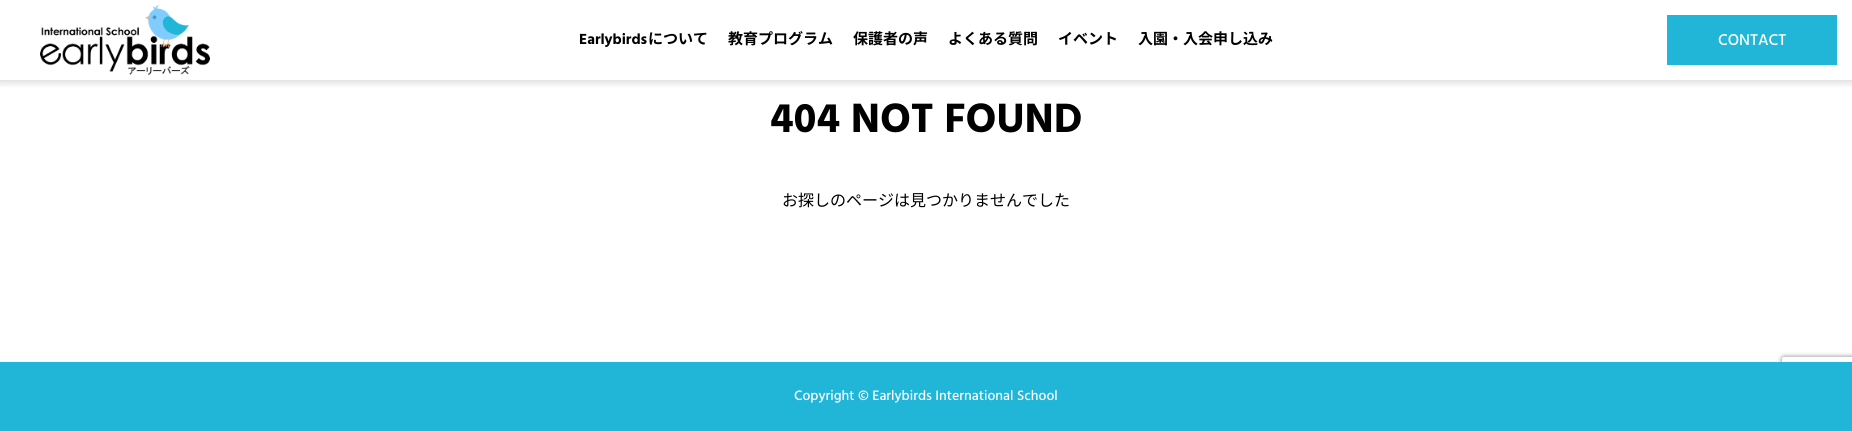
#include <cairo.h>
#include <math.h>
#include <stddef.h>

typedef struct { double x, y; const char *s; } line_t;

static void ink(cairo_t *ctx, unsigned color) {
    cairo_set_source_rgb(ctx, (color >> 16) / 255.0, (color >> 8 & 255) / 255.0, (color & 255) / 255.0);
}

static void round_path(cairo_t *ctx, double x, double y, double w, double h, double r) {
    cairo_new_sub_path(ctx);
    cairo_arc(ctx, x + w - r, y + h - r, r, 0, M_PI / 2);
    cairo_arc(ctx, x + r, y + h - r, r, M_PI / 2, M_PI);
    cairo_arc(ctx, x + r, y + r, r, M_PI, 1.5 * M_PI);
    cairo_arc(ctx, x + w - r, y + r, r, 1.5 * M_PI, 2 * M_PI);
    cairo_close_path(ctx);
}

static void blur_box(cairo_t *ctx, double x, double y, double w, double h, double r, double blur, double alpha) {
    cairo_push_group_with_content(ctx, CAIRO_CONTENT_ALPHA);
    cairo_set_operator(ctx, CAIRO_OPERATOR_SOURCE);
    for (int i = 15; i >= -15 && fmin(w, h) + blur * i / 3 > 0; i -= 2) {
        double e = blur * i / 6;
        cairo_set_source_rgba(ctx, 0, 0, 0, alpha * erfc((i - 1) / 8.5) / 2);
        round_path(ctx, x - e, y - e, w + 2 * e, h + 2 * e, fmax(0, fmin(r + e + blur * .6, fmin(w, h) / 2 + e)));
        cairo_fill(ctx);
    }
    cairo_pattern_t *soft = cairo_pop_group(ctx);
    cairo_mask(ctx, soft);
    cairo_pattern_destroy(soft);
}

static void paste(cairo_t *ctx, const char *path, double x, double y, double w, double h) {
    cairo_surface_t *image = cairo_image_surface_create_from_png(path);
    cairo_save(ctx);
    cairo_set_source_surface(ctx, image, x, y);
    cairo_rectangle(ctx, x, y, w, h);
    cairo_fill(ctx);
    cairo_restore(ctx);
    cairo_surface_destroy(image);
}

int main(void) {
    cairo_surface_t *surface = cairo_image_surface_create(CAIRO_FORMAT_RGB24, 1852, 431);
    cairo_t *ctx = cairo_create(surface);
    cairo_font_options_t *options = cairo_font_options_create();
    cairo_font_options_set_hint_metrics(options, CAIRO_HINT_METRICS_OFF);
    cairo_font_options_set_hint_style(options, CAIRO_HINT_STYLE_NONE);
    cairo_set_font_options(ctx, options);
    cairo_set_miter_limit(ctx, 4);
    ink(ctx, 0xFFFFFF);
    cairo_paint(ctx);
    cairo_save(ctx);
    cairo_rectangle(ctx, 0, 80, 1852, 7);
    cairo_clip(ctx);
    ink(ctx, 0x000000);
    blur_box(ctx, -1, -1, 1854, 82, 0, 5, 0.2);
    cairo_restore(ctx);
    paste(ctx, "media/1.png", 40, 5, 170, 70);
    cairo_select_font_face(ctx, "Hind Madurai", CAIRO_FONT_SLANT_NORMAL, CAIRO_FONT_WEIGHT_BOLD);
    cairo_set_font_size(ctx, 15);
    ink(ctx, 0x000000);
    cairo_move_to(ctx, 579, 44);
    cairo_show_text(ctx, "Earlybirds");
    cairo_select_font_face(ctx, "Noto Sans JP", CAIRO_FONT_SLANT_NORMAL, CAIRO_FONT_WEIGHT_BOLD);
    {
        static const line_t items[] = {
            {648, 44, "について"},
            {728, 44, "教育プログラム"},
            {853, 44, "保護者の声"},
            {948, 44, "よくある質問"},
            {1058, 44, "イベント"},
            {1138, 44, "入園・入会申し込み"},
        };
        for (size_t i = 0; i < sizeof items / sizeof *items; i++) {
            cairo_move_to(ctx, items[i].x, items[i].y);
            cairo_show_text(ctx, items[i].s);
        }
    }
    ink(ctx, 0x21B5D8);
    cairo_rectangle(ctx, 1667, 15, 170, 50);
    cairo_fill(ctx);
    cairo_select_font_face(ctx, "Hind Madurai Medium", CAIRO_FONT_SLANT_NORMAL, CAIRO_FONT_WEIGHT_NORMAL);
    cairo_set_font_size(ctx, 16);
    ink(ctx, 0xFFFFFF);
    cairo_move_to(ctx, 1718, 45);
    cairo_show_text(ctx, "CONTACT");
    cairo_select_font_face(ctx, "Hind Madurai", CAIRO_FONT_SLANT_NORMAL, CAIRO_FONT_WEIGHT_BOLD);
    cairo_set_font_size(ctx, 42);
    ink(ctx, 0x000000);
    cairo_move_to(ctx, 770, 132);
    cairo_show_text(ctx, "404 NOT FOUND");
    cairo_select_font_face(ctx, "Noto Sans JP", CAIRO_FONT_SLANT_NORMAL, CAIRO_FONT_WEIGHT_NORMAL);
    cairo_set_font_size(ctx, 16);
    cairo_move_to(ctx, 782, 206);
    cairo_show_text(ctx, "お探しのページは見つかりませんでした");
    cairo_save(ctx);
    cairo_set_fill_rule(ctx, CAIRO_FILL_RULE_EVEN_ODD);
    cairo_new_path(ctx);
    cairo_move_to(ctx, 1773, 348);
    cairo_line_to(ctx, 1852, 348);
    cairo_line_to(ctx, 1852, 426);
    cairo_line_to(ctx, 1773, 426);
    cairo_close_path(ctx);
    cairo_move_to(ctx, 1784, 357);
    cairo_line_to(ctx, 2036, 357);
    cairo_curve_to(ctx, 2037, 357, 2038, 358, 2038, 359);
    cairo_line_to(ctx, 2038, 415);
    cairo_curve_to(ctx, 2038, 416, 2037, 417, 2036, 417);
    cairo_line_to(ctx, 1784, 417);
    cairo_curve_to(ctx, 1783, 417, 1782, 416, 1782, 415);
    cairo_line_to(ctx, 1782, 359);
    cairo_curve_to(ctx, 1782, 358, 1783, 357, 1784, 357);
    cairo_close_path(ctx);
    cairo_clip(ctx);
    ink(ctx, 0x808080);
    blur_box(ctx, 1782, 357, 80, 60, 2, 2.5, 1);
    cairo_restore(ctx);
    ink(ctx, 0x21B5D8);
    cairo_rectangle(ctx, 0, 362, 1852, 69);
    cairo_fill(ctx);
    cairo_select_font_face(ctx, "Hind Madurai Medium", CAIRO_FONT_SLANT_NORMAL, CAIRO_FONT_WEIGHT_NORMAL);
    cairo_set_font_size(ctx, 14);
    ink(ctx, 0xFFFFFF);
    cairo_move_to(ctx, 794, 400);
    cairo_show_text(ctx, "Copyright © Earlybirds International School");
    cairo_surface_write_to_png(surface, "image.png");
    cairo_font_options_destroy(options);
    cairo_destroy(ctx);
    cairo_surface_destroy(surface);
    return 0;
}
